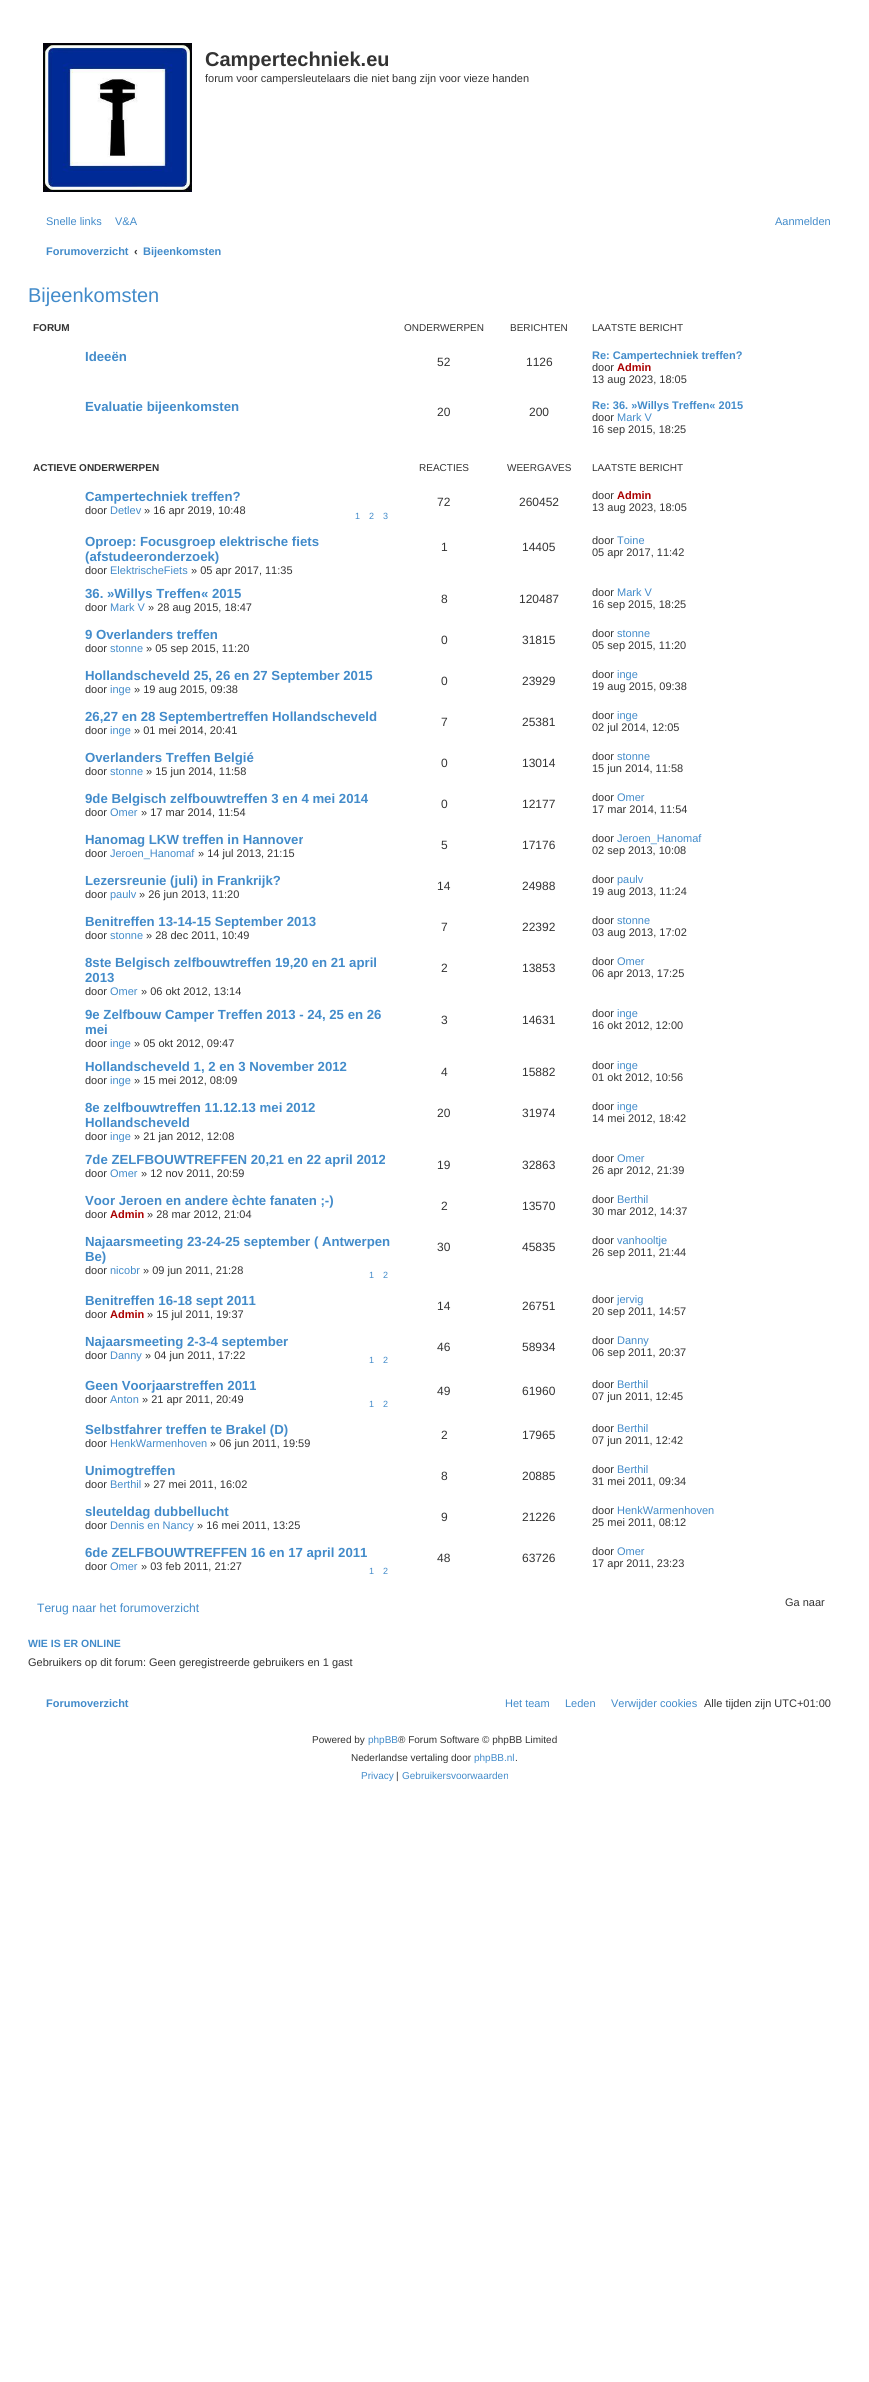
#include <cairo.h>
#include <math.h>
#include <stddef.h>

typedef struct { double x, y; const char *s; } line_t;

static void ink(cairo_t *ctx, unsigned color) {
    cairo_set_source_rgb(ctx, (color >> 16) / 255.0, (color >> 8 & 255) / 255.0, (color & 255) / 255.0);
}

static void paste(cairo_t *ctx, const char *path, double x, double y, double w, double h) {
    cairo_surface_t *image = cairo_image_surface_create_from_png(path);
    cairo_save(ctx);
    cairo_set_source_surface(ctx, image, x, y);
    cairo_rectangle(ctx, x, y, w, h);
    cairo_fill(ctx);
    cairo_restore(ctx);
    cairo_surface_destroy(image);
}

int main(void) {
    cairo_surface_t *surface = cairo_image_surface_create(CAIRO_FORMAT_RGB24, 869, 2382);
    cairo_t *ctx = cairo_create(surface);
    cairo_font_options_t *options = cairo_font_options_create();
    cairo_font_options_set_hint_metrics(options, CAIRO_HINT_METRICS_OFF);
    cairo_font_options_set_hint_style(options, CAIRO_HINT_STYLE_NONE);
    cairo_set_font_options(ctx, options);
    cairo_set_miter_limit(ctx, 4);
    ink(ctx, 0xFFFFFF);
    cairo_paint(ctx);
    paste(ctx, "media/1.png", 43, 43, 149, 149);
    cairo_select_font_face(ctx, "Liberation Sans", CAIRO_FONT_SLANT_NORMAL, CAIRO_FONT_WEIGHT_BOLD);
    cairo_set_font_size(ctx, 20);
    ink(ctx, 0x333333);
    cairo_move_to(ctx, 205, 66);
    cairo_show_text(ctx, "Campertechniek.eu");
    cairo_select_font_face(ctx, "Liberation Sans", CAIRO_FONT_SLANT_NORMAL, CAIRO_FONT_WEIGHT_NORMAL);
    cairo_set_font_size(ctx, 11);
    cairo_move_to(ctx, 205, 82);
    cairo_show_text(ctx, "forum voor campersleutelaars die niet bang zijn voor vieze handen");
    ink(ctx, 0x428BCA);
    {
        static const line_t items[] = {
            {46, 225, "Snelle links"},
            {115, 225, "V&A"},
            {775, 225, "Aanmelden"},
        };
        for (size_t i = 0; i < sizeof items / sizeof *items; i++) {
            cairo_move_to(ctx, items[i].x, items[i].y);
            cairo_show_text(ctx, items[i].s);
        }
    }
    cairo_select_font_face(ctx, "Liberation Sans", CAIRO_FONT_SLANT_NORMAL, CAIRO_FONT_WEIGHT_BOLD);
    cairo_move_to(ctx, 46, 255);
    cairo_show_text(ctx, "Forumoverzicht");
    ink(ctx, 0x333333);
    cairo_move_to(ctx, 134, 255);
    cairo_show_text(ctx, "‹");
    ink(ctx, 0x428BCA);
    cairo_move_to(ctx, 143, 255);
    cairo_show_text(ctx, "Bijeenkomsten");
    cairo_select_font_face(ctx, "Liberation Sans", CAIRO_FONT_SLANT_NORMAL, CAIRO_FONT_WEIGHT_NORMAL);
    cairo_set_font_size(ctx, 20);
    cairo_move_to(ctx, 28, 302);
    cairo_show_text(ctx, "Bijeenkomsten");
    cairo_select_font_face(ctx, "Liberation Sans", CAIRO_FONT_SLANT_NORMAL, CAIRO_FONT_WEIGHT_BOLD);
    cairo_set_font_size(ctx, 10);
    ink(ctx, 0x333333);
    cairo_move_to(ctx, 33, 331);
    cairo_show_text(ctx, "FORUM");
    cairo_select_font_face(ctx, "Liberation Sans", CAIRO_FONT_SLANT_NORMAL, CAIRO_FONT_WEIGHT_NORMAL);
    {
        static const line_t items[] = {
            {404, 331, "ONDERWERPEN"},
            {510, 331, "BERICHTEN"},
            {592, 331, "LAATSTE BERICHT"},
        };
        for (size_t i = 0; i < sizeof items / sizeof *items; i++) {
            cairo_move_to(ctx, items[i].x, items[i].y);
            cairo_show_text(ctx, items[i].s);
        }
    }
    cairo_select_font_face(ctx, "Liberation Sans", CAIRO_FONT_SLANT_NORMAL, CAIRO_FONT_WEIGHT_BOLD);
    cairo_set_font_size(ctx, 13.2);
    ink(ctx, 0x428BCA);
    cairo_move_to(ctx, 85, 361);
    cairo_show_text(ctx, "Ideeën");
    cairo_select_font_face(ctx, "Liberation Sans", CAIRO_FONT_SLANT_NORMAL, CAIRO_FONT_WEIGHT_NORMAL);
    cairo_set_font_size(ctx, 12);
    ink(ctx, 0x333333);
    cairo_move_to(ctx, 437, 366);
    cairo_show_text(ctx, "52");
    cairo_move_to(ctx, 526, 366);
    cairo_show_text(ctx, "1126");
    cairo_select_font_face(ctx, "Liberation Sans", CAIRO_FONT_SLANT_NORMAL, CAIRO_FONT_WEIGHT_BOLD);
    cairo_set_font_size(ctx, 11);
    ink(ctx, 0x428BCA);
    cairo_move_to(ctx, 592, 359);
    cairo_show_text(ctx, "Re: Campertechniek treffen?");
    cairo_select_font_face(ctx, "Liberation Sans", CAIRO_FONT_SLANT_NORMAL, CAIRO_FONT_WEIGHT_NORMAL);
    ink(ctx, 0x333333);
    cairo_move_to(ctx, 592, 371);
    cairo_show_text(ctx, "door");
    cairo_select_font_face(ctx, "Liberation Sans", CAIRO_FONT_SLANT_NORMAL, CAIRO_FONT_WEIGHT_BOLD);
    ink(ctx, 0xAA0000);
    cairo_move_to(ctx, 617, 371);
    cairo_show_text(ctx, "Admin");
    cairo_select_font_face(ctx, "Liberation Sans", CAIRO_FONT_SLANT_NORMAL, CAIRO_FONT_WEIGHT_NORMAL);
    ink(ctx, 0x333333);
    cairo_move_to(ctx, 592, 383);
    cairo_show_text(ctx, "13 aug 2023, 18:05");
    cairo_select_font_face(ctx, "Liberation Sans", CAIRO_FONT_SLANT_NORMAL, CAIRO_FONT_WEIGHT_BOLD);
    cairo_set_font_size(ctx, 13.2);
    ink(ctx, 0x428BCA);
    cairo_move_to(ctx, 85, 411);
    cairo_show_text(ctx, "Evaluatie bijeenkomsten");
    cairo_select_font_face(ctx, "Liberation Sans", CAIRO_FONT_SLANT_NORMAL, CAIRO_FONT_WEIGHT_NORMAL);
    cairo_set_font_size(ctx, 12);
    ink(ctx, 0x333333);
    cairo_move_to(ctx, 437, 416);
    cairo_show_text(ctx, "20");
    cairo_move_to(ctx, 529, 416);
    cairo_show_text(ctx, "200");
    cairo_select_font_face(ctx, "Liberation Sans", CAIRO_FONT_SLANT_NORMAL, CAIRO_FONT_WEIGHT_BOLD);
    cairo_set_font_size(ctx, 11);
    ink(ctx, 0x428BCA);
    cairo_move_to(ctx, 592, 409);
    cairo_show_text(ctx, "Re: 36. »Willys Treffen« 2015");
    cairo_select_font_face(ctx, "Liberation Sans", CAIRO_FONT_SLANT_NORMAL, CAIRO_FONT_WEIGHT_NORMAL);
    ink(ctx, 0x333333);
    cairo_move_to(ctx, 592, 421);
    cairo_show_text(ctx, "door");
    ink(ctx, 0x428BCA);
    cairo_move_to(ctx, 617, 421);
    cairo_show_text(ctx, "Mark V");
    ink(ctx, 0x333333);
    cairo_move_to(ctx, 592, 433);
    cairo_show_text(ctx, "16 sep 2015, 18:25");
    cairo_select_font_face(ctx, "Liberation Sans", CAIRO_FONT_SLANT_NORMAL, CAIRO_FONT_WEIGHT_BOLD);
    cairo_set_font_size(ctx, 10);
    cairo_move_to(ctx, 33, 471);
    cairo_show_text(ctx, "ACTIEVE ONDERWERPEN");
    cairo_select_font_face(ctx, "Liberation Sans", CAIRO_FONT_SLANT_NORMAL, CAIRO_FONT_WEIGHT_NORMAL);
    {
        static const line_t items[] = {
            {419, 471, "REACTIES"},
            {507, 471, "WEERGAVES"},
            {592, 471, "LAATSTE BERICHT"},
        };
        for (size_t i = 0; i < sizeof items / sizeof *items; i++) {
            cairo_move_to(ctx, items[i].x, items[i].y);
            cairo_show_text(ctx, items[i].s);
        }
    }
    cairo_select_font_face(ctx, "Liberation Sans", CAIRO_FONT_SLANT_NORMAL, CAIRO_FONT_WEIGHT_BOLD);
    cairo_set_font_size(ctx, 13.2);
    ink(ctx, 0x428BCA);
    cairo_move_to(ctx, 85, 501);
    cairo_show_text(ctx, "Campertechniek treffen?");
    cairo_select_font_face(ctx, "Liberation Sans", CAIRO_FONT_SLANT_NORMAL, CAIRO_FONT_WEIGHT_NORMAL);
    cairo_set_font_size(ctx, 11);
    ink(ctx, 0x333333);
    cairo_move_to(ctx, 85, 514);
    cairo_show_text(ctx, "door");
    ink(ctx, 0x428BCA);
    cairo_move_to(ctx, 110, 514);
    cairo_show_text(ctx, "Detlev");
    ink(ctx, 0x333333);
    cairo_move_to(ctx, 144, 514);
    cairo_show_text(ctx, "» 16 apr 2019, 10:48");
    cairo_set_font_size(ctx, 9);
    ink(ctx, 0x428BCA);
    {
        static const line_t items[] = {
            {355, 519, "1"},
            {369, 519, "2"},
            {383, 519, "3"},
        };
        for (size_t i = 0; i < sizeof items / sizeof *items; i++) {
            cairo_move_to(ctx, items[i].x, items[i].y);
            cairo_show_text(ctx, items[i].s);
        }
    }
    cairo_set_font_size(ctx, 12);
    ink(ctx, 0x333333);
    cairo_move_to(ctx, 437, 506);
    cairo_show_text(ctx, "72");
    cairo_move_to(ctx, 519, 506);
    cairo_show_text(ctx, "260452");
    cairo_set_font_size(ctx, 11);
    cairo_move_to(ctx, 592, 499);
    cairo_show_text(ctx, "door");
    cairo_select_font_face(ctx, "Liberation Sans", CAIRO_FONT_SLANT_NORMAL, CAIRO_FONT_WEIGHT_BOLD);
    ink(ctx, 0xAA0000);
    cairo_move_to(ctx, 617, 499);
    cairo_show_text(ctx, "Admin");
    cairo_select_font_face(ctx, "Liberation Sans", CAIRO_FONT_SLANT_NORMAL, CAIRO_FONT_WEIGHT_NORMAL);
    ink(ctx, 0x333333);
    cairo_move_to(ctx, 592, 511);
    cairo_show_text(ctx, "13 aug 2023, 18:05");
    cairo_select_font_face(ctx, "Liberation Sans", CAIRO_FONT_SLANT_NORMAL, CAIRO_FONT_WEIGHT_BOLD);
    cairo_set_font_size(ctx, 13.2);
    ink(ctx, 0x428BCA);
    cairo_move_to(ctx, 85, 546);
    cairo_show_text(ctx, "Oproep: Focusgroep elektrische fiets");
    cairo_move_to(ctx, 85, 561);
    cairo_show_text(ctx, "(afstudeeronderzoek)");
    cairo_select_font_face(ctx, "Liberation Sans", CAIRO_FONT_SLANT_NORMAL, CAIRO_FONT_WEIGHT_NORMAL);
    cairo_set_font_size(ctx, 11);
    ink(ctx, 0x333333);
    cairo_move_to(ctx, 85, 574);
    cairo_show_text(ctx, "door");
    ink(ctx, 0x428BCA);
    cairo_move_to(ctx, 110, 574);
    cairo_show_text(ctx, "ElektrischeFiets");
    ink(ctx, 0x333333);
    cairo_move_to(ctx, 191, 574);
    cairo_show_text(ctx, "» 05 apr 2017, 11:35");
    cairo_set_font_size(ctx, 12);
    cairo_move_to(ctx, 441, 551);
    cairo_show_text(ctx, "1");
    cairo_move_to(ctx, 522, 551);
    cairo_show_text(ctx, "14405");
    cairo_set_font_size(ctx, 11);
    cairo_move_to(ctx, 592, 544);
    cairo_show_text(ctx, "door");
    ink(ctx, 0x428BCA);
    cairo_move_to(ctx, 617, 544);
    cairo_show_text(ctx, "Toine");
    ink(ctx, 0x333333);
    cairo_move_to(ctx, 592, 556);
    cairo_show_text(ctx, "05 apr 2017, 11:42");
    cairo_select_font_face(ctx, "Liberation Sans", CAIRO_FONT_SLANT_NORMAL, CAIRO_FONT_WEIGHT_BOLD);
    cairo_set_font_size(ctx, 13.2);
    ink(ctx, 0x428BCA);
    cairo_move_to(ctx, 85, 598);
    cairo_show_text(ctx, "36. »Willys Treffen« 2015");
    cairo_select_font_face(ctx, "Liberation Sans", CAIRO_FONT_SLANT_NORMAL, CAIRO_FONT_WEIGHT_NORMAL);
    cairo_set_font_size(ctx, 11);
    ink(ctx, 0x333333);
    cairo_move_to(ctx, 85, 611);
    cairo_show_text(ctx, "door");
    ink(ctx, 0x428BCA);
    cairo_move_to(ctx, 110, 611);
    cairo_show_text(ctx, "Mark V");
    ink(ctx, 0x333333);
    cairo_move_to(ctx, 148, 611);
    cairo_show_text(ctx, "» 28 aug 2015, 18:47");
    cairo_set_font_size(ctx, 12);
    cairo_move_to(ctx, 441, 603);
    cairo_show_text(ctx, "8");
    cairo_move_to(ctx, 519, 603);
    cairo_show_text(ctx, "120487");
    cairo_set_font_size(ctx, 11);
    cairo_move_to(ctx, 592, 596);
    cairo_show_text(ctx, "door");
    ink(ctx, 0x428BCA);
    cairo_move_to(ctx, 617, 596);
    cairo_show_text(ctx, "Mark V");
    ink(ctx, 0x333333);
    cairo_move_to(ctx, 592, 608);
    cairo_show_text(ctx, "16 sep 2015, 18:25");
    cairo_select_font_face(ctx, "Liberation Sans", CAIRO_FONT_SLANT_NORMAL, CAIRO_FONT_WEIGHT_BOLD);
    cairo_set_font_size(ctx, 13.2);
    ink(ctx, 0x428BCA);
    cairo_move_to(ctx, 85, 639);
    cairo_show_text(ctx, "9 Overlanders treffen");
    cairo_select_font_face(ctx, "Liberation Sans", CAIRO_FONT_SLANT_NORMAL, CAIRO_FONT_WEIGHT_NORMAL);
    cairo_set_font_size(ctx, 11);
    ink(ctx, 0x333333);
    cairo_move_to(ctx, 85, 652);
    cairo_show_text(ctx, "door");
    ink(ctx, 0x428BCA);
    cairo_move_to(ctx, 110, 652);
    cairo_show_text(ctx, "stonne");
    ink(ctx, 0x333333);
    cairo_move_to(ctx, 146, 652);
    cairo_show_text(ctx, "» 05 sep 2015, 11:20");
    cairo_set_font_size(ctx, 12);
    cairo_move_to(ctx, 441, 644);
    cairo_show_text(ctx, "0");
    cairo_move_to(ctx, 522, 644);
    cairo_show_text(ctx, "31815");
    cairo_set_font_size(ctx, 11);
    cairo_move_to(ctx, 592, 637);
    cairo_show_text(ctx, "door");
    ink(ctx, 0x428BCA);
    cairo_move_to(ctx, 617, 637);
    cairo_show_text(ctx, "stonne");
    ink(ctx, 0x333333);
    cairo_move_to(ctx, 592, 649);
    cairo_show_text(ctx, "05 sep 2015, 11:20");
    cairo_select_font_face(ctx, "Liberation Sans", CAIRO_FONT_SLANT_NORMAL, CAIRO_FONT_WEIGHT_BOLD);
    cairo_set_font_size(ctx, 13.2);
    ink(ctx, 0x428BCA);
    cairo_move_to(ctx, 85, 680);
    cairo_show_text(ctx, "Hollandscheveld 25, 26 en 27 September 2015");
    cairo_select_font_face(ctx, "Liberation Sans", CAIRO_FONT_SLANT_NORMAL, CAIRO_FONT_WEIGHT_NORMAL);
    cairo_set_font_size(ctx, 11);
    ink(ctx, 0x333333);
    cairo_move_to(ctx, 85, 693);
    cairo_show_text(ctx, "door");
    ink(ctx, 0x428BCA);
    cairo_move_to(ctx, 110, 693);
    cairo_show_text(ctx, "inge");
    ink(ctx, 0x333333);
    cairo_move_to(ctx, 134, 693);
    cairo_show_text(ctx, "» 19 aug 2015, 09:38");
    cairo_set_font_size(ctx, 12);
    cairo_move_to(ctx, 441, 685);
    cairo_show_text(ctx, "0");
    cairo_move_to(ctx, 522, 685);
    cairo_show_text(ctx, "23929");
    cairo_set_font_size(ctx, 11);
    cairo_move_to(ctx, 592, 678);
    cairo_show_text(ctx, "door");
    ink(ctx, 0x428BCA);
    cairo_move_to(ctx, 617, 678);
    cairo_show_text(ctx, "inge");
    ink(ctx, 0x333333);
    cairo_move_to(ctx, 592, 690);
    cairo_show_text(ctx, "19 aug 2015, 09:38");
    cairo_select_font_face(ctx, "Liberation Sans", CAIRO_FONT_SLANT_NORMAL, CAIRO_FONT_WEIGHT_BOLD);
    cairo_set_font_size(ctx, 13.2);
    ink(ctx, 0x428BCA);
    cairo_move_to(ctx, 85, 721);
    cairo_show_text(ctx, "26,27 en 28 Septembertreffen Hollandscheveld");
    cairo_select_font_face(ctx, "Liberation Sans", CAIRO_FONT_SLANT_NORMAL, CAIRO_FONT_WEIGHT_NORMAL);
    cairo_set_font_size(ctx, 11);
    ink(ctx, 0x333333);
    cairo_move_to(ctx, 85, 734);
    cairo_show_text(ctx, "door");
    ink(ctx, 0x428BCA);
    cairo_move_to(ctx, 110, 734);
    cairo_show_text(ctx, "inge");
    ink(ctx, 0x333333);
    cairo_move_to(ctx, 134, 734);
    cairo_show_text(ctx, "» 01 mei 2014, 20:41");
    cairo_set_font_size(ctx, 12);
    cairo_move_to(ctx, 441, 726);
    cairo_show_text(ctx, "7");
    cairo_move_to(ctx, 522, 726);
    cairo_show_text(ctx, "25381");
    cairo_set_font_size(ctx, 11);
    cairo_move_to(ctx, 592, 719);
    cairo_show_text(ctx, "door");
    ink(ctx, 0x428BCA);
    cairo_move_to(ctx, 617, 719);
    cairo_show_text(ctx, "inge");
    ink(ctx, 0x333333);
    cairo_move_to(ctx, 592, 731);
    cairo_show_text(ctx, "02 jul 2014, 12:05");
    cairo_select_font_face(ctx, "Liberation Sans", CAIRO_FONT_SLANT_NORMAL, CAIRO_FONT_WEIGHT_BOLD);
    cairo_set_font_size(ctx, 13.2);
    ink(ctx, 0x428BCA);
    cairo_move_to(ctx, 85, 762);
    cairo_show_text(ctx, "Overlanders Treffen Belgié");
    cairo_select_font_face(ctx, "Liberation Sans", CAIRO_FONT_SLANT_NORMAL, CAIRO_FONT_WEIGHT_NORMAL);
    cairo_set_font_size(ctx, 11);
    ink(ctx, 0x333333);
    cairo_move_to(ctx, 85, 775);
    cairo_show_text(ctx, "door");
    ink(ctx, 0x428BCA);
    cairo_move_to(ctx, 110, 775);
    cairo_show_text(ctx, "stonne");
    ink(ctx, 0x333333);
    cairo_move_to(ctx, 146, 775);
    cairo_show_text(ctx, "» 15 jun 2014, 11:58");
    cairo_set_font_size(ctx, 12);
    cairo_move_to(ctx, 441, 767);
    cairo_show_text(ctx, "0");
    cairo_move_to(ctx, 522, 767);
    cairo_show_text(ctx, "13014");
    cairo_set_font_size(ctx, 11);
    cairo_move_to(ctx, 592, 760);
    cairo_show_text(ctx, "door");
    ink(ctx, 0x428BCA);
    cairo_move_to(ctx, 617, 760);
    cairo_show_text(ctx, "stonne");
    ink(ctx, 0x333333);
    cairo_move_to(ctx, 592, 772);
    cairo_show_text(ctx, "15 jun 2014, 11:58");
    cairo_select_font_face(ctx, "Liberation Sans", CAIRO_FONT_SLANT_NORMAL, CAIRO_FONT_WEIGHT_BOLD);
    cairo_set_font_size(ctx, 13.2);
    ink(ctx, 0x428BCA);
    cairo_move_to(ctx, 85, 803);
    cairo_show_text(ctx, "9de Belgisch zelfbouwtreffen 3 en 4 mei 2014");
    cairo_select_font_face(ctx, "Liberation Sans", CAIRO_FONT_SLANT_NORMAL, CAIRO_FONT_WEIGHT_NORMAL);
    cairo_set_font_size(ctx, 11);
    ink(ctx, 0x333333);
    cairo_move_to(ctx, 85, 816);
    cairo_show_text(ctx, "door");
    ink(ctx, 0x428BCA);
    cairo_move_to(ctx, 110, 816);
    cairo_show_text(ctx, "Omer");
    ink(ctx, 0x333333);
    cairo_move_to(ctx, 141, 816);
    cairo_show_text(ctx, "» 17 mar 2014, 11:54");
    cairo_set_font_size(ctx, 12);
    cairo_move_to(ctx, 441, 808);
    cairo_show_text(ctx, "0");
    cairo_move_to(ctx, 522, 808);
    cairo_show_text(ctx, "12177");
    cairo_set_font_size(ctx, 11);
    cairo_move_to(ctx, 592, 801);
    cairo_show_text(ctx, "door");
    ink(ctx, 0x428BCA);
    cairo_move_to(ctx, 617, 801);
    cairo_show_text(ctx, "Omer");
    ink(ctx, 0x333333);
    cairo_move_to(ctx, 592, 813);
    cairo_show_text(ctx, "17 mar 2014, 11:54");
    cairo_select_font_face(ctx, "Liberation Sans", CAIRO_FONT_SLANT_NORMAL, CAIRO_FONT_WEIGHT_BOLD);
    cairo_set_font_size(ctx, 13.2);
    ink(ctx, 0x428BCA);
    cairo_move_to(ctx, 85, 844);
    cairo_show_text(ctx, "Hanomag LKW treffen in Hannover");
    cairo_select_font_face(ctx, "Liberation Sans", CAIRO_FONT_SLANT_NORMAL, CAIRO_FONT_WEIGHT_NORMAL);
    cairo_set_font_size(ctx, 11);
    ink(ctx, 0x333333);
    cairo_move_to(ctx, 85, 857);
    cairo_show_text(ctx, "door");
    ink(ctx, 0x428BCA);
    cairo_move_to(ctx, 110, 857);
    cairo_show_text(ctx, "Jeroen_Hanomaf");
    ink(ctx, 0x333333);
    cairo_move_to(ctx, 198, 857);
    cairo_show_text(ctx, "» 14 jul 2013, 21:15");
    cairo_set_font_size(ctx, 12);
    cairo_move_to(ctx, 441, 849);
    cairo_show_text(ctx, "5");
    cairo_move_to(ctx, 522, 849);
    cairo_show_text(ctx, "17176");
    cairo_set_font_size(ctx, 11);
    cairo_move_to(ctx, 592, 842);
    cairo_show_text(ctx, "door");
    ink(ctx, 0x428BCA);
    cairo_move_to(ctx, 617, 842);
    cairo_show_text(ctx, "Jeroen_Hanomaf");
    ink(ctx, 0x333333);
    cairo_move_to(ctx, 592, 854);
    cairo_show_text(ctx, "02 sep 2013, 10:08");
    cairo_select_font_face(ctx, "Liberation Sans", CAIRO_FONT_SLANT_NORMAL, CAIRO_FONT_WEIGHT_BOLD);
    cairo_set_font_size(ctx, 13.2);
    ink(ctx, 0x428BCA);
    cairo_move_to(ctx, 85, 885);
    cairo_show_text(ctx, "Lezersreunie (juli) in Frankrijk?");
    cairo_select_font_face(ctx, "Liberation Sans", CAIRO_FONT_SLANT_NORMAL, CAIRO_FONT_WEIGHT_NORMAL);
    cairo_set_font_size(ctx, 11);
    ink(ctx, 0x333333);
    cairo_move_to(ctx, 85, 898);
    cairo_show_text(ctx, "door");
    ink(ctx, 0x428BCA);
    cairo_move_to(ctx, 110, 898);
    cairo_show_text(ctx, "paulv");
    ink(ctx, 0x333333);
    cairo_move_to(ctx, 139, 898);
    cairo_show_text(ctx, "» 26 jun 2013, 11:20");
    cairo_set_font_size(ctx, 12);
    cairo_move_to(ctx, 437, 890);
    cairo_show_text(ctx, "14");
    cairo_move_to(ctx, 522, 890);
    cairo_show_text(ctx, "24988");
    cairo_set_font_size(ctx, 11);
    cairo_move_to(ctx, 592, 883);
    cairo_show_text(ctx, "door");
    ink(ctx, 0x428BCA);
    cairo_move_to(ctx, 617, 883);
    cairo_show_text(ctx, "paulv");
    ink(ctx, 0x333333);
    cairo_move_to(ctx, 592, 895);
    cairo_show_text(ctx, "19 aug 2013, 11:24");
    cairo_select_font_face(ctx, "Liberation Sans", CAIRO_FONT_SLANT_NORMAL, CAIRO_FONT_WEIGHT_BOLD);
    cairo_set_font_size(ctx, 13.2);
    ink(ctx, 0x428BCA);
    cairo_move_to(ctx, 85, 926);
    cairo_show_text(ctx, "Benitreffen 13-14-15 September 2013");
    cairo_select_font_face(ctx, "Liberation Sans", CAIRO_FONT_SLANT_NORMAL, CAIRO_FONT_WEIGHT_NORMAL);
    cairo_set_font_size(ctx, 11);
    ink(ctx, 0x333333);
    cairo_move_to(ctx, 85, 939);
    cairo_show_text(ctx, "door");
    ink(ctx, 0x428BCA);
    cairo_move_to(ctx, 110, 939);
    cairo_show_text(ctx, "stonne");
    ink(ctx, 0x333333);
    cairo_move_to(ctx, 146, 939);
    cairo_show_text(ctx, "» 28 dec 2011, 10:49");
    cairo_set_font_size(ctx, 12);
    cairo_move_to(ctx, 441, 931);
    cairo_show_text(ctx, "7");
    cairo_move_to(ctx, 522, 931);
    cairo_show_text(ctx, "22392");
    cairo_set_font_size(ctx, 11);
    cairo_move_to(ctx, 592, 924);
    cairo_show_text(ctx, "door");
    ink(ctx, 0x428BCA);
    cairo_move_to(ctx, 617, 924);
    cairo_show_text(ctx, "stonne");
    ink(ctx, 0x333333);
    cairo_move_to(ctx, 592, 936);
    cairo_show_text(ctx, "03 aug 2013, 17:02");
    cairo_select_font_face(ctx, "Liberation Sans", CAIRO_FONT_SLANT_NORMAL, CAIRO_FONT_WEIGHT_BOLD);
    cairo_set_font_size(ctx, 13.2);
    ink(ctx, 0x428BCA);
    cairo_move_to(ctx, 85, 967);
    cairo_show_text(ctx, "8ste Belgisch zelfbouwtreffen 19,20 en 21 april");
    cairo_move_to(ctx, 85, 982);
    cairo_show_text(ctx, "2013");
    cairo_select_font_face(ctx, "Liberation Sans", CAIRO_FONT_SLANT_NORMAL, CAIRO_FONT_WEIGHT_NORMAL);
    cairo_set_font_size(ctx, 11);
    ink(ctx, 0x333333);
    cairo_move_to(ctx, 85, 995);
    cairo_show_text(ctx, "door");
    ink(ctx, 0x428BCA);
    cairo_move_to(ctx, 110, 995);
    cairo_show_text(ctx, "Omer");
    ink(ctx, 0x333333);
    cairo_move_to(ctx, 141, 995);
    cairo_show_text(ctx, "» 06 okt 2012, 13:14");
    cairo_set_font_size(ctx, 12);
    cairo_move_to(ctx, 441, 972);
    cairo_show_text(ctx, "2");
    cairo_move_to(ctx, 522, 972);
    cairo_show_text(ctx, "13853");
    cairo_set_font_size(ctx, 11);
    cairo_move_to(ctx, 592, 965);
    cairo_show_text(ctx, "door");
    ink(ctx, 0x428BCA);
    cairo_move_to(ctx, 617, 965);
    cairo_show_text(ctx, "Omer");
    ink(ctx, 0x333333);
    cairo_move_to(ctx, 592, 977);
    cairo_show_text(ctx, "06 apr 2013, 17:25");
    cairo_select_font_face(ctx, "Liberation Sans", CAIRO_FONT_SLANT_NORMAL, CAIRO_FONT_WEIGHT_BOLD);
    cairo_set_font_size(ctx, 13.2);
    ink(ctx, 0x428BCA);
    cairo_move_to(ctx, 85, 1019);
    cairo_show_text(ctx, "9e Zelfbouw Camper Treffen 2013 - 24, 25 en 26");
    cairo_move_to(ctx, 85, 1034);
    cairo_show_text(ctx, "mei");
    cairo_select_font_face(ctx, "Liberation Sans", CAIRO_FONT_SLANT_NORMAL, CAIRO_FONT_WEIGHT_NORMAL);
    cairo_set_font_size(ctx, 11);
    ink(ctx, 0x333333);
    cairo_move_to(ctx, 85, 1047);
    cairo_show_text(ctx, "door");
    cairo_save(ctx);
    cairo_rectangle(ctx, 33, 1003, 803, 46);
    cairo_clip(ctx);
    ink(ctx, 0x428BCA);
    cairo_move_to(ctx, 110, 1047);
    cairo_show_text(ctx, "inge");
    cairo_restore(ctx);
    cairo_move_to(ctx, 134, 1047);
    cairo_show_text(ctx, "» 05 okt 2012, 09:47");
    cairo_set_font_size(ctx, 12);
    cairo_move_to(ctx, 441, 1024);
    cairo_show_text(ctx, "3");
    cairo_move_to(ctx, 522, 1024);
    cairo_show_text(ctx, "14631");
    cairo_set_font_size(ctx, 11);
    cairo_move_to(ctx, 592, 1017);
    cairo_show_text(ctx, "door");
    ink(ctx, 0x428BCA);
    cairo_move_to(ctx, 617, 1017);
    cairo_show_text(ctx, "inge");
    ink(ctx, 0x333333);
    cairo_move_to(ctx, 592, 1029);
    cairo_show_text(ctx, "16 okt 2012, 12:00");
    cairo_select_font_face(ctx, "Liberation Sans", CAIRO_FONT_SLANT_NORMAL, CAIRO_FONT_WEIGHT_BOLD);
    cairo_set_font_size(ctx, 13.2);
    ink(ctx, 0x428BCA);
    cairo_move_to(ctx, 85, 1071);
    cairo_show_text(ctx, "Hollandscheveld 1, 2 en 3 November 2012");
    cairo_select_font_face(ctx, "Liberation Sans", CAIRO_FONT_SLANT_NORMAL, CAIRO_FONT_WEIGHT_NORMAL);
    cairo_set_font_size(ctx, 11);
    ink(ctx, 0x333333);
    cairo_move_to(ctx, 85, 1084);
    cairo_show_text(ctx, "door");
    ink(ctx, 0x428BCA);
    cairo_move_to(ctx, 110, 1084);
    cairo_show_text(ctx, "inge");
    ink(ctx, 0x333333);
    cairo_move_to(ctx, 134, 1084);
    cairo_show_text(ctx, "» 15 mei 2012, 08:09");
    cairo_set_font_size(ctx, 12);
    cairo_move_to(ctx, 441, 1076);
    cairo_show_text(ctx, "4");
    cairo_move_to(ctx, 522, 1076);
    cairo_show_text(ctx, "15882");
    cairo_set_font_size(ctx, 11);
    cairo_move_to(ctx, 592, 1069);
    cairo_show_text(ctx, "door");
    ink(ctx, 0x428BCA);
    cairo_move_to(ctx, 617, 1069);
    cairo_show_text(ctx, "inge");
    ink(ctx, 0x333333);
    cairo_move_to(ctx, 592, 1081);
    cairo_show_text(ctx, "01 okt 2012, 10:56");
    cairo_select_font_face(ctx, "Liberation Sans", CAIRO_FONT_SLANT_NORMAL, CAIRO_FONT_WEIGHT_BOLD);
    cairo_set_font_size(ctx, 13.2);
    ink(ctx, 0x428BCA);
    cairo_move_to(ctx, 85, 1112);
    cairo_show_text(ctx, "8e zelfbouwtreffen 11.12.13 mei 2012");
    cairo_move_to(ctx, 85, 1127);
    cairo_show_text(ctx, "Hollandscheveld");
    cairo_select_font_face(ctx, "Liberation Sans", CAIRO_FONT_SLANT_NORMAL, CAIRO_FONT_WEIGHT_NORMAL);
    cairo_set_font_size(ctx, 11);
    ink(ctx, 0x333333);
    cairo_move_to(ctx, 85, 1140);
    cairo_show_text(ctx, "door");
    cairo_save(ctx);
    cairo_rectangle(ctx, 33, 1096, 803, 46);
    cairo_clip(ctx);
    ink(ctx, 0x428BCA);
    cairo_move_to(ctx, 110, 1140);
    cairo_show_text(ctx, "inge");
    cairo_restore(ctx);
    cairo_move_to(ctx, 134, 1140);
    cairo_show_text(ctx, "» 21 jan 2012, 12:08");
    cairo_set_font_size(ctx, 12);
    cairo_move_to(ctx, 437, 1117);
    cairo_show_text(ctx, "20");
    cairo_move_to(ctx, 522, 1117);
    cairo_show_text(ctx, "31974");
    cairo_set_font_size(ctx, 11);
    cairo_move_to(ctx, 592, 1110);
    cairo_show_text(ctx, "door");
    ink(ctx, 0x428BCA);
    cairo_move_to(ctx, 617, 1110);
    cairo_show_text(ctx, "inge");
    ink(ctx, 0x333333);
    cairo_move_to(ctx, 592, 1122);
    cairo_show_text(ctx, "14 mei 2012, 18:42");
    cairo_select_font_face(ctx, "Liberation Sans", CAIRO_FONT_SLANT_NORMAL, CAIRO_FONT_WEIGHT_BOLD);
    cairo_set_font_size(ctx, 13.2);
    ink(ctx, 0x428BCA);
    cairo_move_to(ctx, 85, 1164);
    cairo_show_text(ctx, "7de ZELFBOUWTREFFEN 20,21 en 22 april 2012");
    cairo_select_font_face(ctx, "Liberation Sans", CAIRO_FONT_SLANT_NORMAL, CAIRO_FONT_WEIGHT_NORMAL);
    cairo_set_font_size(ctx, 11);
    ink(ctx, 0x333333);
    cairo_move_to(ctx, 85, 1177);
    cairo_show_text(ctx, "door");
    ink(ctx, 0x428BCA);
    cairo_move_to(ctx, 110, 1177);
    cairo_show_text(ctx, "Omer");
    ink(ctx, 0x333333);
    cairo_move_to(ctx, 141, 1177);
    cairo_show_text(ctx, "» 12 nov 2011, 20:59");
    cairo_set_font_size(ctx, 12);
    cairo_move_to(ctx, 437, 1169);
    cairo_show_text(ctx, "19");
    cairo_move_to(ctx, 522, 1169);
    cairo_show_text(ctx, "32863");
    cairo_set_font_size(ctx, 11);
    cairo_move_to(ctx, 592, 1162);
    cairo_show_text(ctx, "door");
    ink(ctx, 0x428BCA);
    cairo_move_to(ctx, 617, 1162);
    cairo_show_text(ctx, "Omer");
    ink(ctx, 0x333333);
    cairo_move_to(ctx, 592, 1174);
    cairo_show_text(ctx, "26 apr 2012, 21:39");
    cairo_select_font_face(ctx, "Liberation Sans", CAIRO_FONT_SLANT_NORMAL, CAIRO_FONT_WEIGHT_BOLD);
    cairo_set_font_size(ctx, 13.2);
    ink(ctx, 0x428BCA);
    cairo_move_to(ctx, 85, 1205);
    cairo_show_text(ctx, "Voor Jeroen en andere èchte fanaten ;-)");
    cairo_select_font_face(ctx, "Liberation Sans", CAIRO_FONT_SLANT_NORMAL, CAIRO_FONT_WEIGHT_NORMAL);
    cairo_set_font_size(ctx, 11);
    ink(ctx, 0x333333);
    cairo_move_to(ctx, 85, 1218);
    cairo_show_text(ctx, "door");
    cairo_select_font_face(ctx, "Liberation Sans", CAIRO_FONT_SLANT_NORMAL, CAIRO_FONT_WEIGHT_BOLD);
    ink(ctx, 0xAA0000);
    cairo_move_to(ctx, 110, 1218);
    cairo_show_text(ctx, "Admin");
    cairo_select_font_face(ctx, "Liberation Sans", CAIRO_FONT_SLANT_NORMAL, CAIRO_FONT_WEIGHT_NORMAL);
    ink(ctx, 0x333333);
    cairo_move_to(ctx, 147, 1218);
    cairo_show_text(ctx, "» 28 mar 2012, 21:04");
    cairo_set_font_size(ctx, 12);
    cairo_move_to(ctx, 441, 1210);
    cairo_show_text(ctx, "2");
    cairo_move_to(ctx, 522, 1210);
    cairo_show_text(ctx, "13570");
    cairo_set_font_size(ctx, 11);
    cairo_move_to(ctx, 592, 1203);
    cairo_show_text(ctx, "door");
    ink(ctx, 0x428BCA);
    cairo_move_to(ctx, 617, 1203);
    cairo_show_text(ctx, "Berthil");
    ink(ctx, 0x333333);
    cairo_move_to(ctx, 592, 1215);
    cairo_show_text(ctx, "30 mar 2012, 14:37");
    cairo_select_font_face(ctx, "Liberation Sans", CAIRO_FONT_SLANT_NORMAL, CAIRO_FONT_WEIGHT_BOLD);
    cairo_set_font_size(ctx, 13.2);
    ink(ctx, 0x428BCA);
    cairo_move_to(ctx, 85, 1246);
    cairo_show_text(ctx, "Najaarsmeeting 23-24-25 september ( Antwerpen");
    cairo_move_to(ctx, 85, 1261);
    cairo_show_text(ctx, "Be)");
    cairo_select_font_face(ctx, "Liberation Sans", CAIRO_FONT_SLANT_NORMAL, CAIRO_FONT_WEIGHT_NORMAL);
    cairo_set_font_size(ctx, 11);
    ink(ctx, 0x333333);
    cairo_move_to(ctx, 85, 1274);
    cairo_show_text(ctx, "door");
    ink(ctx, 0x428BCA);
    cairo_move_to(ctx, 110, 1274);
    cairo_show_text(ctx, "nicobr");
    ink(ctx, 0x333333);
    cairo_move_to(ctx, 143, 1274);
    cairo_show_text(ctx, "» 09 jun 2011, 21:28");
    cairo_set_font_size(ctx, 9);
    ink(ctx, 0x428BCA);
    cairo_move_to(ctx, 369, 1278);
    cairo_show_text(ctx, "1");
    cairo_move_to(ctx, 383, 1278);
    cairo_show_text(ctx, "2");
    cairo_set_font_size(ctx, 12);
    ink(ctx, 0x333333);
    cairo_move_to(ctx, 437, 1251);
    cairo_show_text(ctx, "30");
    cairo_move_to(ctx, 522, 1251);
    cairo_show_text(ctx, "45835");
    cairo_set_font_size(ctx, 11);
    cairo_move_to(ctx, 592, 1244);
    cairo_show_text(ctx, "door");
    ink(ctx, 0x428BCA);
    cairo_move_to(ctx, 617, 1244);
    cairo_show_text(ctx, "vanhooltje");
    ink(ctx, 0x333333);
    cairo_move_to(ctx, 592, 1256);
    cairo_show_text(ctx, "26 sep 2011, 21:44");
    cairo_select_font_face(ctx, "Liberation Sans", CAIRO_FONT_SLANT_NORMAL, CAIRO_FONT_WEIGHT_BOLD);
    cairo_set_font_size(ctx, 13.2);
    ink(ctx, 0x428BCA);
    cairo_move_to(ctx, 85, 1305);
    cairo_show_text(ctx, "Benitreffen 16-18 sept 2011");
    cairo_select_font_face(ctx, "Liberation Sans", CAIRO_FONT_SLANT_NORMAL, CAIRO_FONT_WEIGHT_NORMAL);
    cairo_set_font_size(ctx, 11);
    ink(ctx, 0x333333);
    cairo_move_to(ctx, 85, 1318);
    cairo_show_text(ctx, "door");
    cairo_select_font_face(ctx, "Liberation Sans", CAIRO_FONT_SLANT_NORMAL, CAIRO_FONT_WEIGHT_BOLD);
    ink(ctx, 0xAA0000);
    cairo_move_to(ctx, 110, 1318);
    cairo_show_text(ctx, "Admin");
    cairo_select_font_face(ctx, "Liberation Sans", CAIRO_FONT_SLANT_NORMAL, CAIRO_FONT_WEIGHT_NORMAL);
    ink(ctx, 0x333333);
    cairo_move_to(ctx, 147, 1318);
    cairo_show_text(ctx, "» 15 jul 2011, 19:37");
    cairo_set_font_size(ctx, 12);
    cairo_move_to(ctx, 437, 1310);
    cairo_show_text(ctx, "14");
    cairo_move_to(ctx, 522, 1310);
    cairo_show_text(ctx, "26751");
    cairo_set_font_size(ctx, 11);
    cairo_move_to(ctx, 592, 1303);
    cairo_show_text(ctx, "door");
    ink(ctx, 0x428BCA);
    cairo_move_to(ctx, 617, 1303);
    cairo_show_text(ctx, "jervig");
    ink(ctx, 0x333333);
    cairo_move_to(ctx, 592, 1315);
    cairo_show_text(ctx, "20 sep 2011, 14:57");
    cairo_select_font_face(ctx, "Liberation Sans", CAIRO_FONT_SLANT_NORMAL, CAIRO_FONT_WEIGHT_BOLD);
    cairo_set_font_size(ctx, 13.2);
    ink(ctx, 0x428BCA);
    cairo_move_to(ctx, 85, 1346);
    cairo_show_text(ctx, "Najaarsmeeting 2-3-4 september");
    cairo_select_font_face(ctx, "Liberation Sans", CAIRO_FONT_SLANT_NORMAL, CAIRO_FONT_WEIGHT_NORMAL);
    cairo_set_font_size(ctx, 11);
    ink(ctx, 0x333333);
    cairo_move_to(ctx, 85, 1359);
    cairo_show_text(ctx, "door");
    ink(ctx, 0x428BCA);
    cairo_move_to(ctx, 110, 1359);
    cairo_show_text(ctx, "Danny");
    ink(ctx, 0x333333);
    cairo_move_to(ctx, 145, 1359);
    cairo_show_text(ctx, "» 04 jun 2011, 17:22");
    cairo_set_font_size(ctx, 9);
    ink(ctx, 0x428BCA);
    cairo_move_to(ctx, 369, 1363);
    cairo_show_text(ctx, "1");
    cairo_move_to(ctx, 383, 1363);
    cairo_show_text(ctx, "2");
    cairo_set_font_size(ctx, 12);
    ink(ctx, 0x333333);
    cairo_move_to(ctx, 437, 1351);
    cairo_show_text(ctx, "46");
    cairo_move_to(ctx, 522, 1351);
    cairo_show_text(ctx, "58934");
    cairo_set_font_size(ctx, 11);
    cairo_move_to(ctx, 592, 1344);
    cairo_show_text(ctx, "door");
    ink(ctx, 0x428BCA);
    cairo_move_to(ctx, 617, 1344);
    cairo_show_text(ctx, "Danny");
    ink(ctx, 0x333333);
    cairo_move_to(ctx, 592, 1356);
    cairo_show_text(ctx, "06 sep 2011, 20:37");
    cairo_select_font_face(ctx, "Liberation Sans", CAIRO_FONT_SLANT_NORMAL, CAIRO_FONT_WEIGHT_BOLD);
    cairo_set_font_size(ctx, 13.2);
    ink(ctx, 0x428BCA);
    cairo_move_to(ctx, 85, 1390);
    cairo_show_text(ctx, "Geen Voorjaarstreffen 2011");
    cairo_select_font_face(ctx, "Liberation Sans", CAIRO_FONT_SLANT_NORMAL, CAIRO_FONT_WEIGHT_NORMAL);
    cairo_set_font_size(ctx, 11);
    ink(ctx, 0x333333);
    cairo_move_to(ctx, 85, 1403);
    cairo_show_text(ctx, "door");
    ink(ctx, 0x428BCA);
    cairo_move_to(ctx, 110, 1403);
    cairo_show_text(ctx, "Anton");
    ink(ctx, 0x333333);
    cairo_move_to(ctx, 142, 1403);
    cairo_show_text(ctx, "» 21 apr 2011, 20:49");
    cairo_set_font_size(ctx, 9);
    ink(ctx, 0x428BCA);
    cairo_move_to(ctx, 369, 1407);
    cairo_show_text(ctx, "1");
    cairo_move_to(ctx, 383, 1407);
    cairo_show_text(ctx, "2");
    cairo_set_font_size(ctx, 12);
    ink(ctx, 0x333333);
    cairo_move_to(ctx, 437, 1395);
    cairo_show_text(ctx, "49");
    cairo_move_to(ctx, 522, 1395);
    cairo_show_text(ctx, "61960");
    cairo_set_font_size(ctx, 11);
    cairo_move_to(ctx, 592, 1388);
    cairo_show_text(ctx, "door");
    ink(ctx, 0x428BCA);
    cairo_move_to(ctx, 617, 1388);
    cairo_show_text(ctx, "Berthil");
    ink(ctx, 0x333333);
    cairo_move_to(ctx, 592, 1400);
    cairo_show_text(ctx, "07 jun 2011, 12:45");
    cairo_select_font_face(ctx, "Liberation Sans", CAIRO_FONT_SLANT_NORMAL, CAIRO_FONT_WEIGHT_BOLD);
    cairo_set_font_size(ctx, 13.2);
    ink(ctx, 0x428BCA);
    cairo_move_to(ctx, 85, 1434);
    cairo_show_text(ctx, "Selbstfahrer treffen te Brakel (D)");
    cairo_select_font_face(ctx, "Liberation Sans", CAIRO_FONT_SLANT_NORMAL, CAIRO_FONT_WEIGHT_NORMAL);
    cairo_set_font_size(ctx, 11);
    ink(ctx, 0x333333);
    cairo_move_to(ctx, 85, 1447);
    cairo_show_text(ctx, "door");
    ink(ctx, 0x428BCA);
    cairo_move_to(ctx, 110, 1447);
    cairo_show_text(ctx, "HenkWarmenhoven");
    ink(ctx, 0x333333);
    cairo_move_to(ctx, 210, 1447);
    cairo_show_text(ctx, "» 06 jun 2011, 19:59");
    cairo_set_font_size(ctx, 12);
    cairo_move_to(ctx, 441, 1439);
    cairo_show_text(ctx, "2");
    cairo_move_to(ctx, 522, 1439);
    cairo_show_text(ctx, "17965");
    cairo_set_font_size(ctx, 11);
    cairo_move_to(ctx, 592, 1432);
    cairo_show_text(ctx, "door");
    ink(ctx, 0x428BCA);
    cairo_move_to(ctx, 617, 1432);
    cairo_show_text(ctx, "Berthil");
    ink(ctx, 0x333333);
    cairo_move_to(ctx, 592, 1444);
    cairo_show_text(ctx, "07 jun 2011, 12:42");
    cairo_select_font_face(ctx, "Liberation Sans", CAIRO_FONT_SLANT_NORMAL, CAIRO_FONT_WEIGHT_BOLD);
    cairo_set_font_size(ctx, 13.2);
    ink(ctx, 0x428BCA);
    cairo_move_to(ctx, 85, 1475);
    cairo_show_text(ctx, "Unimogtreffen");
    cairo_select_font_face(ctx, "Liberation Sans", CAIRO_FONT_SLANT_NORMAL, CAIRO_FONT_WEIGHT_NORMAL);
    cairo_set_font_size(ctx, 11);
    ink(ctx, 0x333333);
    cairo_move_to(ctx, 85, 1488);
    cairo_show_text(ctx, "door");
    ink(ctx, 0x428BCA);
    cairo_move_to(ctx, 110, 1488);
    cairo_show_text(ctx, "Berthil");
    ink(ctx, 0x333333);
    cairo_move_to(ctx, 144, 1488);
    cairo_show_text(ctx, "» 27 mei 2011, 16:02");
    cairo_set_font_size(ctx, 12);
    cairo_move_to(ctx, 441, 1480);
    cairo_show_text(ctx, "8");
    cairo_move_to(ctx, 522, 1480);
    cairo_show_text(ctx, "20885");
    cairo_set_font_size(ctx, 11);
    cairo_move_to(ctx, 592, 1473);
    cairo_show_text(ctx, "door");
    ink(ctx, 0x428BCA);
    cairo_move_to(ctx, 617, 1473);
    cairo_show_text(ctx, "Berthil");
    ink(ctx, 0x333333);
    cairo_move_to(ctx, 592, 1485);
    cairo_show_text(ctx, "31 mei 2011, 09:34");
    cairo_select_font_face(ctx, "Liberation Sans", CAIRO_FONT_SLANT_NORMAL, CAIRO_FONT_WEIGHT_BOLD);
    cairo_set_font_size(ctx, 13.2);
    ink(ctx, 0x428BCA);
    cairo_move_to(ctx, 85, 1516);
    cairo_show_text(ctx, "sleuteldag dubbellucht");
    cairo_select_font_face(ctx, "Liberation Sans", CAIRO_FONT_SLANT_NORMAL, CAIRO_FONT_WEIGHT_NORMAL);
    cairo_set_font_size(ctx, 11);
    ink(ctx, 0x333333);
    cairo_move_to(ctx, 85, 1529);
    cairo_show_text(ctx, "door");
    ink(ctx, 0x428BCA);
    cairo_move_to(ctx, 110, 1529);
    cairo_show_text(ctx, "Dennis en Nancy");
    ink(ctx, 0x333333);
    cairo_move_to(ctx, 197, 1529);
    cairo_show_text(ctx, "» 16 mei 2011, 13:25");
    cairo_set_font_size(ctx, 12);
    cairo_move_to(ctx, 441, 1521);
    cairo_show_text(ctx, "9");
    cairo_move_to(ctx, 522, 1521);
    cairo_show_text(ctx, "21226");
    cairo_set_font_size(ctx, 11);
    cairo_move_to(ctx, 592, 1514);
    cairo_show_text(ctx, "door");
    ink(ctx, 0x428BCA);
    cairo_move_to(ctx, 617, 1514);
    cairo_show_text(ctx, "HenkWarmenhoven");
    ink(ctx, 0x333333);
    cairo_move_to(ctx, 592, 1526);
    cairo_show_text(ctx, "25 mei 2011, 08:12");
    cairo_select_font_face(ctx, "Liberation Sans", CAIRO_FONT_SLANT_NORMAL, CAIRO_FONT_WEIGHT_BOLD);
    cairo_set_font_size(ctx, 13.2);
    ink(ctx, 0x428BCA);
    cairo_move_to(ctx, 85, 1557);
    cairo_show_text(ctx, "6de ZELFBOUWTREFFEN 16 en 17 april 2011");
    cairo_select_font_face(ctx, "Liberation Sans", CAIRO_FONT_SLANT_NORMAL, CAIRO_FONT_WEIGHT_NORMAL);
    cairo_set_font_size(ctx, 11);
    ink(ctx, 0x333333);
    cairo_move_to(ctx, 85, 1570);
    cairo_show_text(ctx, "door");
    ink(ctx, 0x428BCA);
    cairo_move_to(ctx, 110, 1570);
    cairo_show_text(ctx, "Omer");
    ink(ctx, 0x333333);
    cairo_move_to(ctx, 141, 1570);
    cairo_show_text(ctx, "» 03 feb 2011, 21:27");
    cairo_set_font_size(ctx, 9);
    ink(ctx, 0x428BCA);
    cairo_move_to(ctx, 369, 1574);
    cairo_show_text(ctx, "1");
    cairo_move_to(ctx, 383, 1574);
    cairo_show_text(ctx, "2");
    cairo_set_font_size(ctx, 12);
    ink(ctx, 0x333333);
    cairo_move_to(ctx, 437, 1562);
    cairo_show_text(ctx, "48");
    cairo_move_to(ctx, 522, 1562);
    cairo_show_text(ctx, "63726");
    cairo_set_font_size(ctx, 11);
    cairo_move_to(ctx, 592, 1555);
    cairo_show_text(ctx, "door");
    ink(ctx, 0x428BCA);
    cairo_move_to(ctx, 617, 1555);
    cairo_show_text(ctx, "Omer");
    ink(ctx, 0x333333);
    cairo_move_to(ctx, 592, 1567);
    cairo_show_text(ctx, "17 apr 2011, 23:23");
    cairo_set_font_size(ctx, 12.1);
    ink(ctx, 0x428BCA);
    cairo_move_to(ctx, 37, 1612);
    cairo_show_text(ctx, "Terug naar het forumoverzicht");
    cairo_set_font_size(ctx, 11);
    ink(ctx, 0x333333);
    cairo_move_to(ctx, 785, 1606);
    cairo_show_text(ctx, "Ga naar");
    cairo_select_font_face(ctx, "Liberation Sans", CAIRO_FONT_SLANT_NORMAL, CAIRO_FONT_WEIGHT_BOLD);
    cairo_set_font_size(ctx, 10.5);
    ink(ctx, 0x428BCA);
    cairo_move_to(ctx, 28, 1647);
    cairo_show_text(ctx, "WIE IS ER ONLINE");
    cairo_select_font_face(ctx, "Liberation Sans", CAIRO_FONT_SLANT_NORMAL, CAIRO_FONT_WEIGHT_NORMAL);
    cairo_set_font_size(ctx, 11);
    ink(ctx, 0x333333);
    cairo_move_to(ctx, 28, 1666);
    cairo_show_text(ctx, "Gebruikers op dit forum: Geen geregistreerde gebruikers en 1 gast");
    cairo_select_font_face(ctx, "Liberation Sans", CAIRO_FONT_SLANT_NORMAL, CAIRO_FONT_WEIGHT_BOLD);
    ink(ctx, 0x428BCA);
    cairo_move_to(ctx, 46, 1707);
    cairo_show_text(ctx, "Forumoverzicht");
    cairo_select_font_face(ctx, "Liberation Sans", CAIRO_FONT_SLANT_NORMAL, CAIRO_FONT_WEIGHT_NORMAL);
    {
        static const line_t items[] = {
            {505, 1707, "Het team"},
            {565, 1707, "Leden"},
            {611, 1707, "Verwijder cookies"},
        };
        for (size_t i = 0; i < sizeof items / sizeof *items; i++) {
            cairo_move_to(ctx, items[i].x, items[i].y);
            cairo_show_text(ctx, items[i].s);
        }
    }
    ink(ctx, 0x333333);
    cairo_move_to(ctx, 704, 1707);
    cairo_show_text(ctx, "Alle tijden zijn UTC+01:00");
    cairo_set_font_size(ctx, 10);
    cairo_move_to(ctx, 312, 1743);
    cairo_show_text(ctx, "Powered by");
    ink(ctx, 0x428BCA);
    cairo_move_to(ctx, 368, 1743);
    cairo_show_text(ctx, "phpBB");
    ink(ctx, 0x333333);
    cairo_move_to(ctx, 398, 1743);
    cairo_show_text(ctx, "® Forum Software © phpBB Limited");
    cairo_move_to(ctx, 351, 1761);
    cairo_show_text(ctx, "Nederlandse vertaling door");
    ink(ctx, 0x428BCA);
    cairo_move_to(ctx, 474, 1761);
    cairo_show_text(ctx, "phpBB.nl");
    ink(ctx, 0x333333);
    cairo_move_to(ctx, 515, 1761);
    cairo_show_text(ctx, ".");
    ink(ctx, 0x428BCA);
    cairo_move_to(ctx, 361, 1779);
    cairo_show_text(ctx, "Privacy");
    ink(ctx, 0x333333);
    cairo_move_to(ctx, 396, 1779);
    cairo_show_text(ctx, "|");
    ink(ctx, 0x428BCA);
    cairo_move_to(ctx, 402, 1779);
    cairo_show_text(ctx, "Gebruikersvoorwaarden");
    cairo_surface_write_to_png(surface, "image.png");
    cairo_font_options_destroy(options);
    cairo_destroy(ctx);
    cairo_surface_destroy(surface);
    return 0;
}
